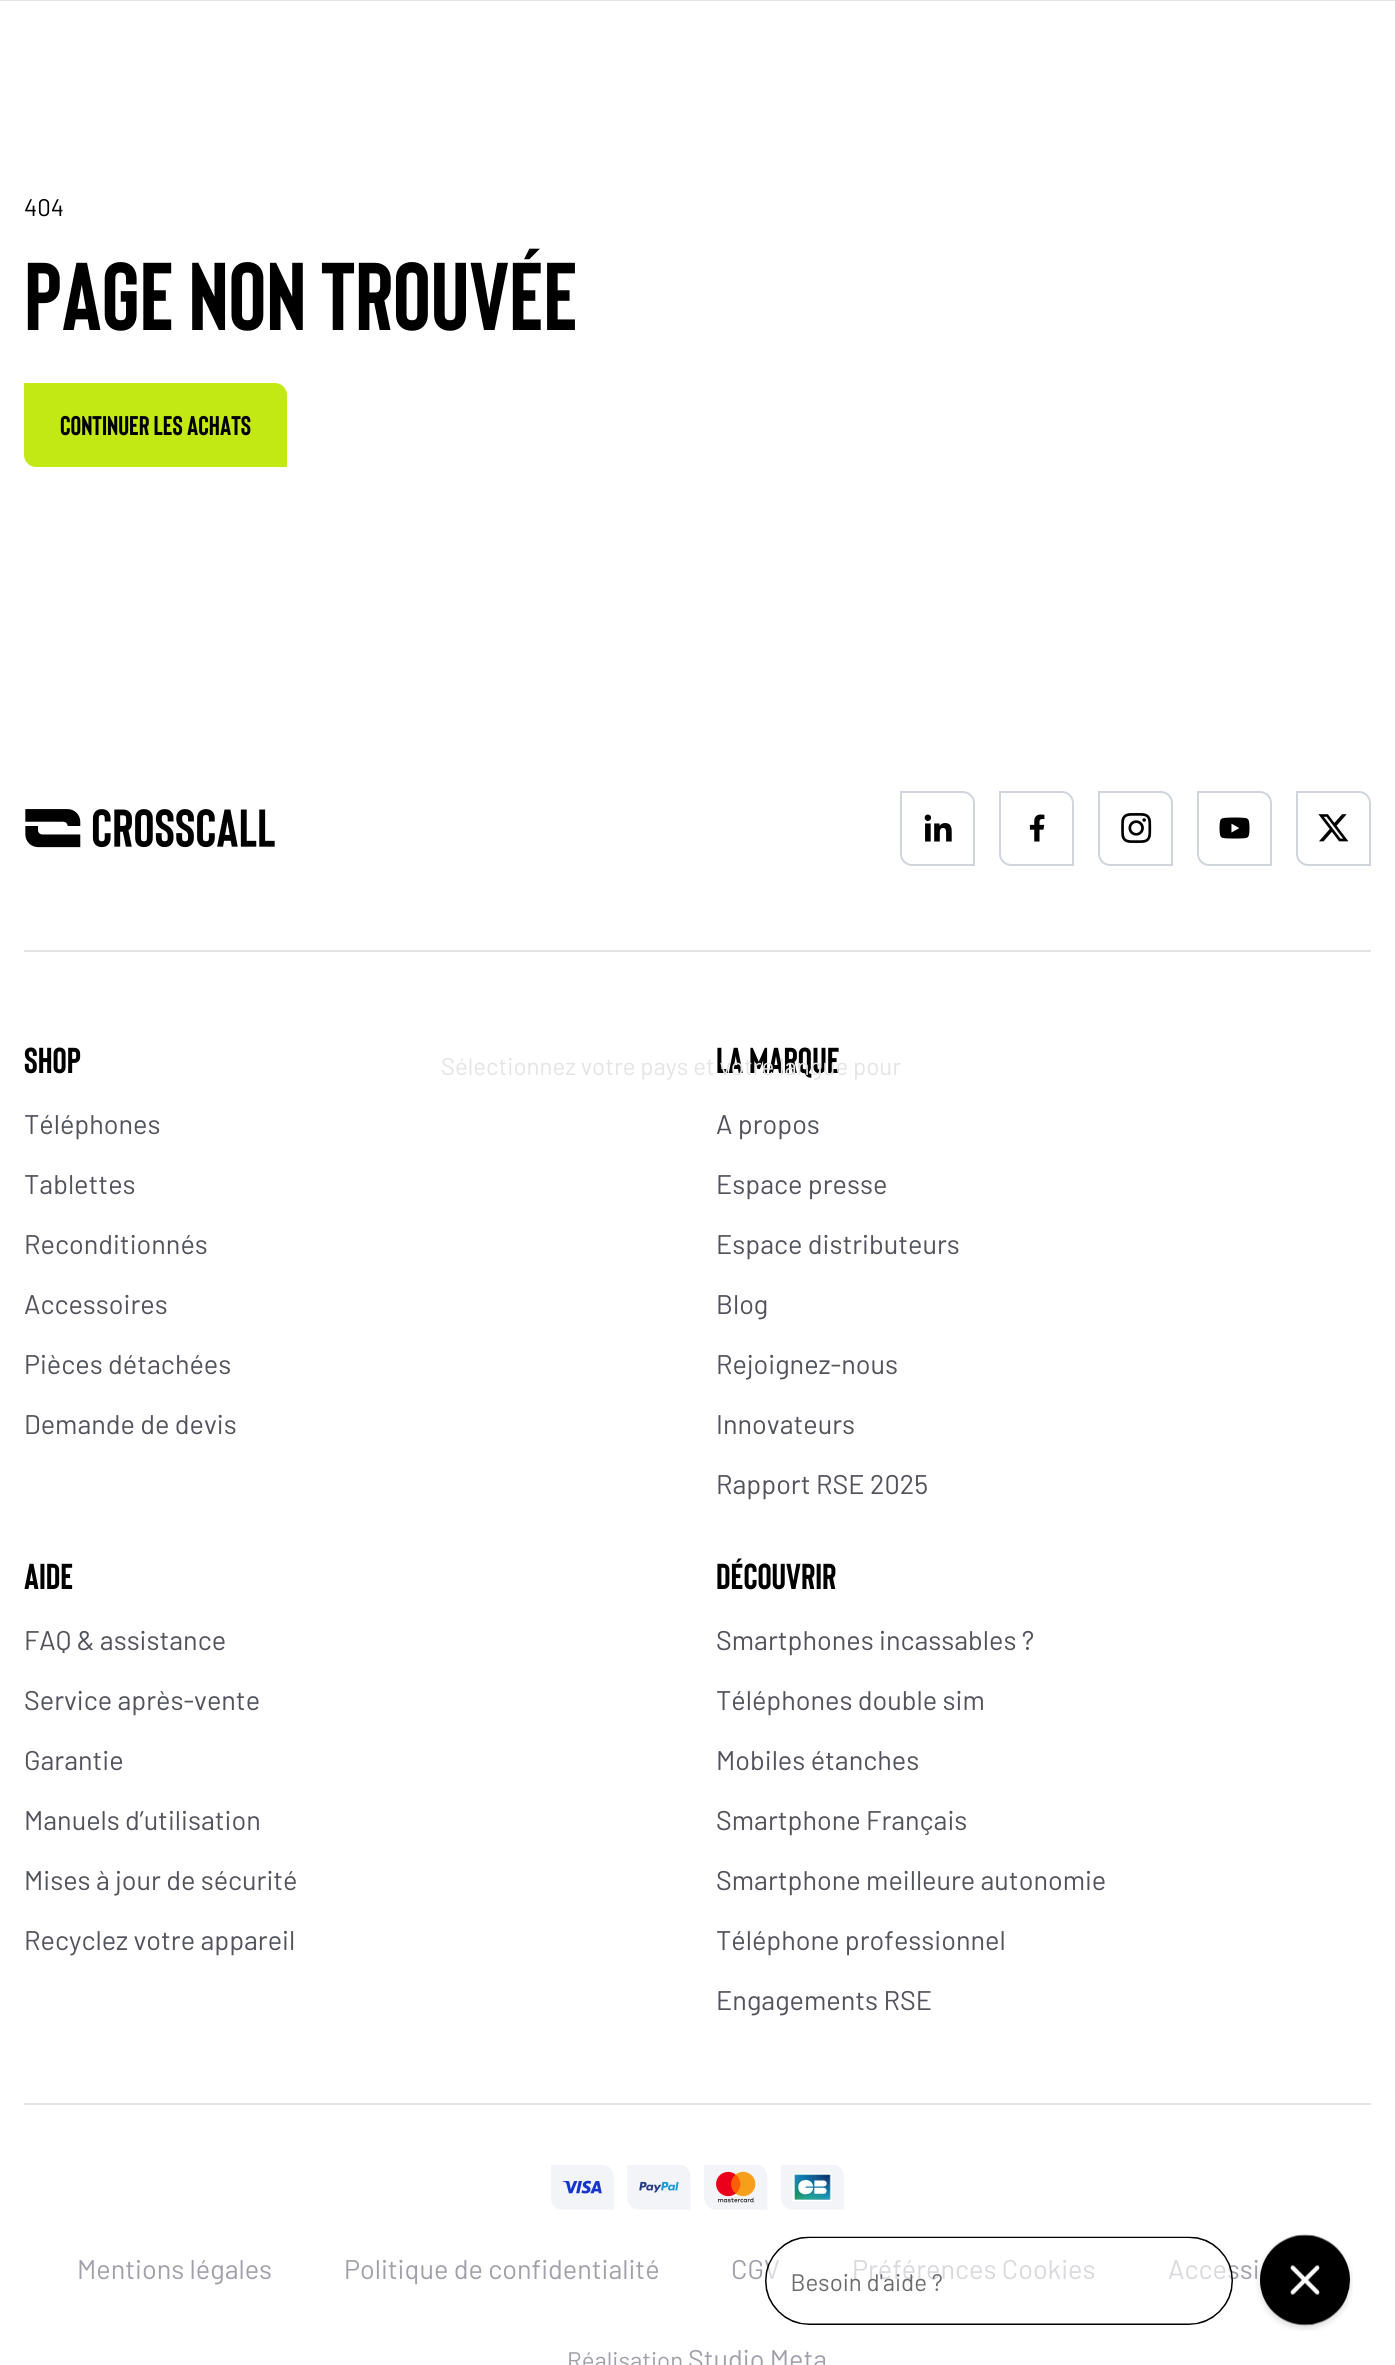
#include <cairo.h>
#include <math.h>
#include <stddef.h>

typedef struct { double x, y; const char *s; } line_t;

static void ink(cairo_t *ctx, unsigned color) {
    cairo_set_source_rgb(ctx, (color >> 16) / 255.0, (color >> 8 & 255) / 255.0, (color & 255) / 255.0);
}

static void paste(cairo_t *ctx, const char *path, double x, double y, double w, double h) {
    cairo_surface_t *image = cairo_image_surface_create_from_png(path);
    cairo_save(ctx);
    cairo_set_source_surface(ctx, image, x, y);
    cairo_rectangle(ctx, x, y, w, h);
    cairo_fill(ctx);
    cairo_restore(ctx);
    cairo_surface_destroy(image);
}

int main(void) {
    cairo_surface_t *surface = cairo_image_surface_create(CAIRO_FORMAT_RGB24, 1395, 2365);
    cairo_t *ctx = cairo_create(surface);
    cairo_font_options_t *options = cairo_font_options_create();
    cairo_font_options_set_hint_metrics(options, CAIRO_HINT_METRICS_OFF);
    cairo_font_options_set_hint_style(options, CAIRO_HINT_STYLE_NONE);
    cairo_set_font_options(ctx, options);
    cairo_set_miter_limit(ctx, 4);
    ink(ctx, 0xFFFFFF);
    cairo_paint(ctx);
    ink(ctx, 0xE4E4E7);
    cairo_rectangle(ctx, 0, 0, 1395, 1);
    cairo_fill(ctx);
    cairo_select_font_face(ctx, "Barlow", CAIRO_FONT_SLANT_NORMAL, CAIRO_FONT_WEIGHT_NORMAL);
    cairo_set_font_size(ctx, 24);
    ink(ctx, 0x000000);
    cairo_move_to(ctx, 24, 216);
    cairo_show_text(ctx, "404");
    cairo_select_font_face(ctx, "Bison", CAIRO_FONT_SLANT_NORMAL, CAIRO_FONT_WEIGHT_BOLD);
    cairo_set_font_size(ctx, 96);
    cairo_move_to(ctx, 24, 330);
    cairo_show_text(ctx, "Page non trouvée");
    ink(ctx, 0xC3E914);
    cairo_new_path(ctx);
    cairo_move_to(ctx, 24, 383);
    cairo_line_to(ctx, 275, 383);
    cairo_curve_to(ctx, 281.5, 383, 287, 388.5, 287, 395);
    cairo_line_to(ctx, 287, 467);
    cairo_line_to(ctx, 36, 467);
    cairo_curve_to(ctx, 29.5, 467, 24, 461.5, 24, 455);
    cairo_close_path(ctx);
    cairo_fill(ctx);
    cairo_set_font_size(ctx, 27);
    ink(ctx, 0x000000);
    cairo_move_to(ctx, 60, 435);
    cairo_show_text(ctx, "Continuer les achats");
    ink(ctx, 0xE4E4E7);
    cairo_rectangle(ctx, 24, 950, 1347, 2);
    cairo_fill(ctx);
    paste(ctx, "media/1.png", 25, 809, 250, 39);
    cairo_new_path(ctx);
    cairo_move_to(ctx, 901, 792);
    cairo_line_to(ctx, 963, 792);
    cairo_curve_to(ctx, 969, 792, 974, 797, 974, 803);
    cairo_line_to(ctx, 974, 865);
    cairo_line_to(ctx, 912, 865);
    cairo_curve_to(ctx, 906, 865, 901, 860, 901, 854);
    cairo_close_path(ctx);
    ink(ctx, 0xD0D5DD);
    cairo_stroke(ctx);
    paste(ctx, "media/2.png", 924, 814, 28, 28);
    cairo_new_path(ctx);
    cairo_move_to(ctx, 1000, 792);
    cairo_line_to(ctx, 1062, 792);
    cairo_curve_to(ctx, 1068, 792, 1073, 797, 1073, 803);
    cairo_line_to(ctx, 1073, 865);
    cairo_line_to(ctx, 1011, 865);
    cairo_curve_to(ctx, 1005, 865, 1000, 860, 1000, 854);
    cairo_close_path(ctx);
    cairo_stroke(ctx);
    paste(ctx, "media/3.png", 1029, 814, 16, 28);
    cairo_new_path(ctx);
    cairo_move_to(ctx, 1099, 792);
    cairo_line_to(ctx, 1161, 792);
    cairo_curve_to(ctx, 1167, 792, 1172, 797, 1172, 803);
    cairo_line_to(ctx, 1172, 865);
    cairo_line_to(ctx, 1110, 865);
    cairo_curve_to(ctx, 1104, 865, 1099, 860, 1099, 854);
    cairo_close_path(ctx);
    cairo_stroke(ctx);
    paste(ctx, "media/4.png", 1121, 813, 31, 30);
    cairo_new_path(ctx);
    cairo_move_to(ctx, 1198, 792);
    cairo_line_to(ctx, 1260, 792);
    cairo_curve_to(ctx, 1266, 792, 1271, 797, 1271, 803);
    cairo_line_to(ctx, 1271, 865);
    cairo_line_to(ctx, 1209, 865);
    cairo_curve_to(ctx, 1203, 865, 1198, 860, 1198, 854);
    cairo_close_path(ctx);
    cairo_stroke(ctx);
    paste(ctx, "media/5.png", 1219, 817, 31, 22);
    cairo_new_path(ctx);
    cairo_move_to(ctx, 1297, 792);
    cairo_line_to(ctx, 1359, 792);
    cairo_curve_to(ctx, 1365, 792, 1370, 797, 1370, 803);
    cairo_line_to(ctx, 1370, 865);
    cairo_line_to(ctx, 1308, 865);
    cairo_curve_to(ctx, 1302, 865, 1297, 860, 1297, 854);
    cairo_close_path(ctx);
    cairo_stroke(ctx);
    paste(ctx, "media/6.png", 1318, 814, 31, 28);
    cairo_set_font_size(ctx, 36);
    ink(ctx, 0x000000);
    cairo_move_to(ctx, 24, 1073);
    cairo_show_text(ctx, "SHOP");
    cairo_select_font_face(ctx, "Barlow", CAIRO_FONT_SLANT_NORMAL, CAIRO_FONT_WEIGHT_NORMAL);
    cairo_set_font_size(ctx, 27);
    ink(ctx, 0x51525C);
    {
        static const line_t items[] = {
            {24, 1134, "Téléphones"},
            {24, 1194, "Tablettes"},
            {24, 1254, "Reconditionnés"},
            {24, 1314, "Accessoires"},
            {24, 1374, "Pièces détachées"},
            {24, 1434, "Demande de devis"},
        };
        for (size_t i = 0; i < sizeof items / sizeof *items; i++) {
            cairo_move_to(ctx, items[i].x, items[i].y);
            cairo_show_text(ctx, items[i].s);
        }
    }
    cairo_select_font_face(ctx, "Bison", CAIRO_FONT_SLANT_NORMAL, CAIRO_FONT_WEIGHT_BOLD);
    cairo_set_font_size(ctx, 36);
    ink(ctx, 0x000000);
    cairo_move_to(ctx, 716, 1073);
    cairo_show_text(ctx, "LA MARQUE");
    cairo_select_font_face(ctx, "Barlow", CAIRO_FONT_SLANT_NORMAL, CAIRO_FONT_WEIGHT_NORMAL);
    cairo_set_font_size(ctx, 27);
    ink(ctx, 0x51525C);
    {
        static const line_t items[] = {
            {716, 1134, "A propos"},
            {716, 1194, "Espace presse"},
            {716, 1254, "Espace distributeurs"},
            {716, 1314, "Blog"},
            {716, 1374, "Rejoignez-nous"},
            {716, 1434, "Innovateurs"},
            {716, 1494, "Rapport RSE 2025"},
        };
        for (size_t i = 0; i < sizeof items / sizeof *items; i++) {
            cairo_move_to(ctx, items[i].x, items[i].y);
            cairo_show_text(ctx, items[i].s);
        }
    }
    cairo_select_font_face(ctx, "Bison", CAIRO_FONT_SLANT_NORMAL, CAIRO_FONT_WEIGHT_BOLD);
    cairo_set_font_size(ctx, 36);
    ink(ctx, 0x000000);
    cairo_move_to(ctx, 24, 1589);
    cairo_show_text(ctx, "AIDE");
    cairo_select_font_face(ctx, "Barlow", CAIRO_FONT_SLANT_NORMAL, CAIRO_FONT_WEIGHT_NORMAL);
    cairo_set_font_size(ctx, 27);
    ink(ctx, 0x51525C);
    {
        static const line_t items[] = {
            {24, 1650, "FAQ & assistance"},
            {24, 1710, "Service après-vente"},
            {24, 1770, "Garantie"},
            {24, 1830, "Manuels d’utilisation"},
            {24, 1890, "Mises à jour de sécurité"},
            {24, 1950, "Recyclez votre appareil"},
        };
        for (size_t i = 0; i < sizeof items / sizeof *items; i++) {
            cairo_move_to(ctx, items[i].x, items[i].y);
            cairo_show_text(ctx, items[i].s);
        }
    }
    cairo_select_font_face(ctx, "Bison", CAIRO_FONT_SLANT_NORMAL, CAIRO_FONT_WEIGHT_BOLD);
    cairo_set_font_size(ctx, 36);
    ink(ctx, 0x000000);
    cairo_move_to(ctx, 716, 1589);
    cairo_show_text(ctx, "DÉCOUVRIR");
    cairo_select_font_face(ctx, "Barlow", CAIRO_FONT_SLANT_NORMAL, CAIRO_FONT_WEIGHT_NORMAL);
    cairo_set_font_size(ctx, 27);
    ink(ctx, 0x51525C);
    {
        static const line_t items[] = {
            {716, 1650, "Smartphones incassables ?"},
            {716, 1710, "Téléphones double sim"},
            {716, 1770, "Mobiles étanches"},
            {716, 1830, "Smartphone Français"},
            {716, 1890, "Smartphone meilleure autonomie"},
            {716, 1950, "Téléphone professionnel"},
            {716, 2010, "Engagements RSE"},
        };
        for (size_t i = 0; i < sizeof items / sizeof *items; i++) {
            cairo_move_to(ctx, items[i].x, items[i].y);
            cairo_show_text(ctx, items[i].s);
        }
    }
    ink(ctx, 0xE4E4E7);
    cairo_rectangle(ctx, 24, 2103, 1347, 2);
    cairo_fill(ctx);
    paste(ctx, "media/7.png", 551, 2165, 63, 45);
    paste(ctx, "media/8.png", 627, 2165, 64, 45);
    paste(ctx, "media/9.png", 704, 2165, 64, 45);
    paste(ctx, "media/10.png", 781, 2165, 63, 45);
    ink(ctx, 0xA0A0AB);
    {
        static const line_t items[] = {
            {77, 2279, "Mentions légales"},
            {344, 2279, "Politique de confidentialité"},
            {731, 2279, "CGV"},
            {852, 2279, "Préférences Cookies"},
            {1168, 2279, "Accessi"},
        };
        for (size_t i = 0; i < sizeof items / sizeof *items; i++) {
            cairo_move_to(ctx, items[i].x, items[i].y);
            cairo_show_text(ctx, items[i].s);
        }
    }
    cairo_set_font_size(ctx, 24);
    cairo_move_to(ctx, 567, 2369);
    cairo_show_text(ctx, "Réalisation");
    cairo_set_font_size(ctx, 27);
    cairo_move_to(ctx, 688, 2369);
    cairo_show_text(ctx, "Studio Meta");
    cairo_set_font_size(ctx, 24);
    ink(ctx, 0xE4E4E4);
    cairo_move_to(ctx, 441, 1075);
    cairo_show_text(ctx, "Sélectionnez votre pays et votre langue pour");
    paste(ctx, "media/11.png", 765, 2234, 588, 97);
    cairo_surface_write_to_png(surface, "image.png");
    cairo_font_options_destroy(options);
    cairo_destroy(ctx);
    cairo_surface_destroy(surface);
    return 0;
}
